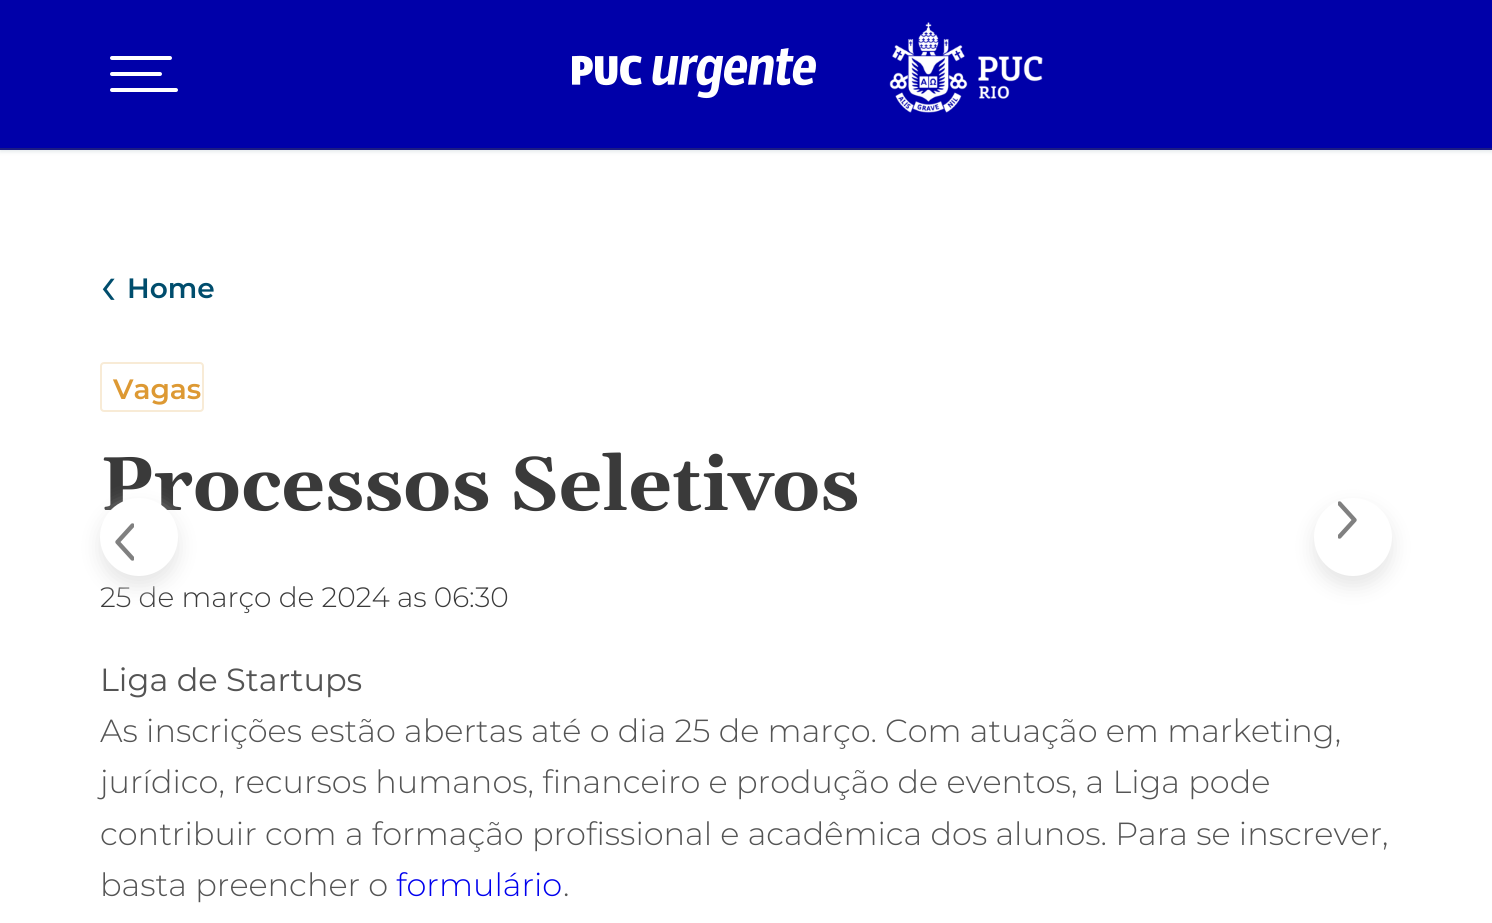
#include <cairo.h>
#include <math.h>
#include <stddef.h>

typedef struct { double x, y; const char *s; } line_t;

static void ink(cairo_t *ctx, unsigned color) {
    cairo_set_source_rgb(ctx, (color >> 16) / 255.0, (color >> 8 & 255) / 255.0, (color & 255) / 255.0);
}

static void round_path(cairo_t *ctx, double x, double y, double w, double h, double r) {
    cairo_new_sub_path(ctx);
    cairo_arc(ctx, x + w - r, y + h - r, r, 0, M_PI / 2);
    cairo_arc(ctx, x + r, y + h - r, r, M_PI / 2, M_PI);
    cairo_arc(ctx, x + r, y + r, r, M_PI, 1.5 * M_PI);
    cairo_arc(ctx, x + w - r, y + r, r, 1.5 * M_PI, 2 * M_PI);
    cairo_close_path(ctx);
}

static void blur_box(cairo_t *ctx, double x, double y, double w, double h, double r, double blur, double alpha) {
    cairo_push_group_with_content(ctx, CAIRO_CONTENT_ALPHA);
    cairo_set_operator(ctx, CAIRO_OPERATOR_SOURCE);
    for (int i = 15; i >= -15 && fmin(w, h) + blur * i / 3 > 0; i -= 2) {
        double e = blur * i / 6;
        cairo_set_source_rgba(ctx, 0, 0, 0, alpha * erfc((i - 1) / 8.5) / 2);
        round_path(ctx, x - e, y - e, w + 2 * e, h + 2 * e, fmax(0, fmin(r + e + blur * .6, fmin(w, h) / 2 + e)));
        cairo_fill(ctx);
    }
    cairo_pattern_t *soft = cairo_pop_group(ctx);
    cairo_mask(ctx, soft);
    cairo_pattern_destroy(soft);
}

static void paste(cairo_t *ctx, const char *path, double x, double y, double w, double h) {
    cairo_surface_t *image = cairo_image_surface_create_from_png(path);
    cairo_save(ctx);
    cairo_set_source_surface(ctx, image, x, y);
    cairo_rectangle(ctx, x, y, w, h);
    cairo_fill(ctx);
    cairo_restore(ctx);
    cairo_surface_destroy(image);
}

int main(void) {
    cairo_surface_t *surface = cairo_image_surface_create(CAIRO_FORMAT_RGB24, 1492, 923);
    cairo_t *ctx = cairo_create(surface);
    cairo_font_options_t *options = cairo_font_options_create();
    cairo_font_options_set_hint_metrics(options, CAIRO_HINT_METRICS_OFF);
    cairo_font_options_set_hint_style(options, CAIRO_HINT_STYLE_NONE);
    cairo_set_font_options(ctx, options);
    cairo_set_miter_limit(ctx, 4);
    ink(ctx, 0xFFFFFF);
    cairo_paint(ctx);
    ink(ctx, 0x00354C);
    blur_box(ctx, 0, 2, 1492, 150, 0, 2, 0.1);
    ink(ctx, 0x0000A9);
    cairo_rectangle(ctx, 0, 0, 1492, 148);
    cairo_fill(ctx);
    ink(ctx, 0x1B1B83);
    cairo_rectangle(ctx, 0, 148, 1492, 2);
    cairo_fill(ctx);
    ink(ctx, 0xFFFFFF);
    round_path(ctx, 110, 56, 62, 4, 2);
    cairo_fill(ctx);
    round_path(ctx, 110, 72, 52, 4, 2);
    cairo_fill(ctx);
    round_path(ctx, 110, 88, 68, 4, 2);
    cairo_fill(ctx);
    paste(ctx, "media/1.png", 572, 48, 244, 51);
    paste(ctx, "media/2.png", 889, 22, 154, 91);
    cairo_select_font_face(ctx, "Montserrat", CAIRO_FONT_SLANT_NORMAL, CAIRO_FONT_WEIGHT_NORMAL);
    cairo_set_font_size(ctx, 56);
    ink(ctx, 0x004D6D);
    cairo_move_to(ctx, 100, 304);
    cairo_show_text(ctx, "‹");
    cairo_select_font_face(ctx, "Montserrat SemiBold", CAIRO_FONT_SLANT_NORMAL, CAIRO_FONT_WEIGHT_NORMAL);
    cairo_set_font_size(ctx, 28);
    cairo_move_to(ctx, 127, 298);
    cairo_show_text(ctx, "Home");
    round_path(ctx, 101, 363, 102, 48, 3);
    ink(ctx, 0xF8EBD6);
    cairo_stroke(ctx);
    ink(ctx, 0xDD9933);
    cairo_move_to(ctx, 113, 399);
    cairo_show_text(ctx, "Vagas");
    cairo_select_font_face(ctx, "Gelasio", CAIRO_FONT_SLANT_NORMAL, CAIRO_FONT_WEIGHT_BOLD);
    cairo_set_font_size(ctx, 76);
    ink(ctx, 0x3A3A3A);
    cairo_move_to(ctx, 100, 510);
    cairo_show_text(ctx, "Processos Seletivos");
    cairo_select_font_face(ctx, "Montserrat Light", CAIRO_FONT_SLANT_NORMAL, CAIRO_FONT_WEIGHT_NORMAL);
    cairo_set_font_size(ctx, 28);
    cairo_move_to(ctx, 100, 607);
    cairo_show_text(ctx, "25 de março de 2024 as 06:30");
    cairo_select_font_face(ctx, "Montserrat", CAIRO_FONT_SLANT_NORMAL, CAIRO_FONT_WEIGHT_NORMAL);
    cairo_set_font_size(ctx, 32);
    ink(ctx, 0x545454);
    cairo_move_to(ctx, 100, 691);
    cairo_show_text(ctx, "Liga de Startups");
    cairo_select_font_face(ctx, "Montserrat Light", CAIRO_FONT_SLANT_NORMAL, CAIRO_FONT_WEIGHT_NORMAL);
    {
        static const line_t items[] = {
            {100, 742, "As inscrições estão abertas até o dia 25 de março. Com atuação em marketing,"},
            {100, 793, "jurídico, recursos humanos, financeiro e produção de eventos, a Liga pode"},
            {100, 845, "contribuir com a formação profissional e acadêmica dos alunos. Para se inscrever,"},
            {100, 896, "basta preencher o"},
        };
        for (size_t i = 0; i < sizeof items / sizeof *items; i++) {
            cairo_move_to(ctx, items[i].x, items[i].y);
            cairo_show_text(ctx, items[i].s);
        }
    }
    ink(ctx, 0x0000EE);
    cairo_move_to(ctx, 396, 896);
    cairo_show_text(ctx, "formulário");
    ink(ctx, 0x545454);
    cairo_move_to(ctx, 563, 896);
    cairo_show_text(ctx, ".");
    ink(ctx, 0xE6E6E6);
    blur_box(ctx, 100, 508, 78, 78, 39, 10, 1);
    ink(ctx, 0xFFFFFF);
    cairo_arc(ctx, 139, 537, 39, 0, 2 * M_PI);
    cairo_fill(ctx);
    cairo_save(ctx);
    cairo_new_path(ctx);
    cairo_move_to(ctx, 134, 521);
    cairo_line_to(ctx, 134, 561);
    cairo_line_to(ctx, 114, 561);
    cairo_line_to(ctx, 114, 521);
    cairo_close_path(ctx);
    cairo_clip(ctx);
    cairo_new_path(ctx);
    cairo_move_to(ctx, 132.5, 558.5);
    cairo_line_to(ctx, 117.5, 542);
    cairo_line_to(ctx, 132.5, 525.5);
    ink(ctx, 0x808080);
    cairo_set_line_width(ctx, 4.4);
    cairo_set_line_cap(ctx, CAIRO_LINE_CAP_ROUND);
    cairo_set_line_join(ctx, CAIRO_LINE_JOIN_ROUND);
    cairo_stroke(ctx);
    cairo_restore(ctx);
    ink(ctx, 0xE6E6E6);
    blur_box(ctx, 1314, 508, 78, 78, 39, 10, 1);
    ink(ctx, 0xFFFFFF);
    cairo_arc(ctx, 1353, 537, 39, 0, 2 * M_PI);
    cairo_fill(ctx);
    cairo_save(ctx);
    cairo_new_path(ctx);
    cairo_move_to(ctx, 1338, 541);
    cairo_line_to(ctx, 1338, 501);
    cairo_line_to(ctx, 1358, 501);
    cairo_line_to(ctx, 1358, 541);
    cairo_close_path(ctx);
    cairo_clip(ctx);
    cairo_new_path(ctx);
    cairo_move_to(ctx, 1339.5, 503.5);
    cairo_line_to(ctx, 1354.5, 520);
    cairo_line_to(ctx, 1339.5, 536.5);
    ink(ctx, 0x808080);
    cairo_set_line_width(ctx, 4.4);
    cairo_set_line_cap(ctx, CAIRO_LINE_CAP_ROUND);
    cairo_set_line_join(ctx, CAIRO_LINE_JOIN_ROUND);
    cairo_stroke(ctx);
    cairo_restore(ctx);
    cairo_surface_write_to_png(surface, "image.png");
    cairo_font_options_destroy(options);
    cairo_destroy(ctx);
    cairo_surface_destroy(surface);
    return 0;
}
